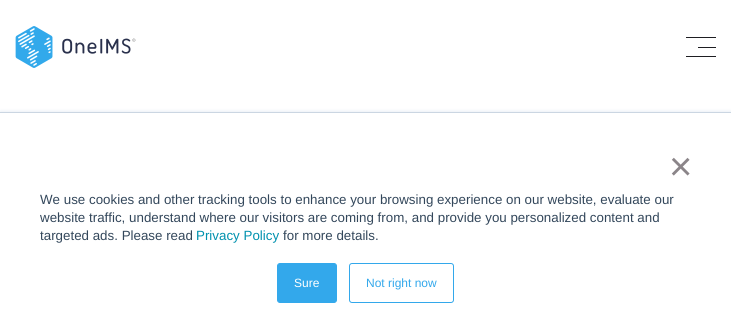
#include <cairo.h>
#include <math.h>
#include <stddef.h>

typedef struct { double x, y; const char *s; } line_t;
typedef struct { double x, y, w, h; unsigned color; } box_t;

static void ink(cairo_t *ctx, unsigned color) {
    cairo_set_source_rgb(ctx, (color >> 16) / 255.0, (color >> 8 & 255) / 255.0, (color & 255) / 255.0);
}

static void round_path(cairo_t *ctx, double x, double y, double w, double h, double r) {
    cairo_new_sub_path(ctx);
    cairo_arc(ctx, x + w - r, y + h - r, r, 0, M_PI / 2);
    cairo_arc(ctx, x + r, y + h - r, r, M_PI / 2, M_PI);
    cairo_arc(ctx, x + r, y + r, r, M_PI, 1.5 * M_PI);
    cairo_arc(ctx, x + w - r, y + r, r, 1.5 * M_PI, 2 * M_PI);
    cairo_close_path(ctx);
}

static void blur_box(cairo_t *ctx, double x, double y, double w, double h, double r, double blur, double alpha) {
    cairo_push_group_with_content(ctx, CAIRO_CONTENT_ALPHA);
    cairo_set_operator(ctx, CAIRO_OPERATOR_SOURCE);
    for (int i = 15; i >= -15 && fmin(w, h) + blur * i / 3 > 0; i -= 2) {
        double e = blur * i / 6;
        cairo_set_source_rgba(ctx, 0, 0, 0, alpha * erfc((i - 1) / 8.5) / 2);
        round_path(ctx, x - e, y - e, w + 2 * e, h + 2 * e, fmax(0, fmin(r + e + blur * .6, fmin(w, h) / 2 + e)));
        cairo_fill(ctx);
    }
    cairo_pattern_t *soft = cairo_pop_group(ctx);
    cairo_mask(ctx, soft);
    cairo_pattern_destroy(soft);
}

static void paste(cairo_t *ctx, const char *path, double x, double y, double w, double h) {
    cairo_surface_t *image = cairo_image_surface_create_from_png(path);
    cairo_save(ctx);
    cairo_set_source_surface(ctx, image, x, y);
    cairo_rectangle(ctx, x, y, w, h);
    cairo_fill(ctx);
    cairo_restore(ctx);
    cairo_surface_destroy(image);
}

int main(void) {
    cairo_surface_t *surface = cairo_image_surface_create(CAIRO_FORMAT_RGB24, 731, 329);
    cairo_t *ctx = cairo_create(surface);
    cairo_font_options_t *options = cairo_font_options_create();
    cairo_font_options_set_hint_metrics(options, CAIRO_HINT_METRICS_OFF);
    cairo_font_options_set_hint_style(options, CAIRO_HINT_STYLE_NONE);
    cairo_set_font_options(ctx, options);
    cairo_set_miter_limit(ctx, 4);
    ink(ctx, 0xFFFFFF);
    cairo_paint(ctx);
    paste(ctx, "media/1.png", 15, 26, 121, 42);
    {
        static const box_t items[] = {
            {686, 37, 30, 1, 0x1E1E22},
            {686, 56, 30, 1, 0x1E1E22},
            {698, 47, 18, 1, 0x1E1E22},
        };
        for (size_t i = 0; i < sizeof items / sizeof *items; i++) {
            ink(ctx, items[i].color);
            cairo_rectangle(ctx, items[i].x, items[i].y, items[i].w, items[i].h);
            cairo_fill(ctx);
        }
    }
    ink(ctx, 0xEAF0F6);
    blur_box(ctx, 0, 111, 731, 217, 0, 1.5, 1);
    ink(ctx, 0xFFFFFF);
    cairo_rectangle(ctx, 0, 113, 731, 216);
    cairo_fill(ctx);
    ink(ctx, 0xCBD6E2);
    cairo_rectangle(ctx, 0, 112, 731, 1);
    cairo_fill(ctx);
    cairo_select_font_face(ctx, "Liberation Sans", CAIRO_FONT_SLANT_NORMAL, CAIRO_FONT_WEIGHT_NORMAL);
    cairo_set_font_size(ctx, 40);
    ink(ctx, 0x8B8589);
    cairo_move_to(ctx, 669, 180);
    cairo_show_text(ctx, "×");
    cairo_set_font_size(ctx, 13.35);
    ink(ctx, 0x33475B);
    {
        static const line_t items[] = {
            {40, 204, "We use cookies and other tracking tools to enhance your browsing experience on our website, evaluate our"},
            {40, 222, "website traffic, understand where our visitors are coming from, and provide you personalized content and"},
            {40, 240, "targeted ads. Please read"},
        };
        for (size_t i = 0; i < sizeof items / sizeof *items; i++) {
            cairo_move_to(ctx, items[i].x, items[i].y);
            cairo_show_text(ctx, items[i].s);
        }
    }
    ink(ctx, 0x0091AE);
    cairo_move_to(ctx, 196, 240);
    cairo_show_text(ctx, "Privacy Policy");
    ink(ctx, 0x33475B);
    cairo_move_to(ctx, 283, 240);
    cairo_show_text(ctx, "for more details.");
    ink(ctx, 0x33A8EB);
    round_path(ctx, 277.5, 263.5, 59, 39, 2.5);
    cairo_fill_preserve(ctx);
    cairo_set_line_width(ctx, 1);
    cairo_stroke(ctx);
    cairo_set_font_size(ctx, 12);
    ink(ctx, 0xFFFFFF);
    cairo_move_to(ctx, 294, 287);
    cairo_show_text(ctx, "Sure");
    round_path(ctx, 349.5, 263.5, 104, 39, 2.5);
    ink(ctx, 0x33A8EB);
    cairo_stroke(ctx);
    cairo_move_to(ctx, 366, 287);
    cairo_show_text(ctx, "Not right now");
    cairo_surface_write_to_png(surface, "image.png");
    cairo_font_options_destroy(options);
    cairo_destroy(ctx);
    cairo_surface_destroy(surface);
    return 0;
}
